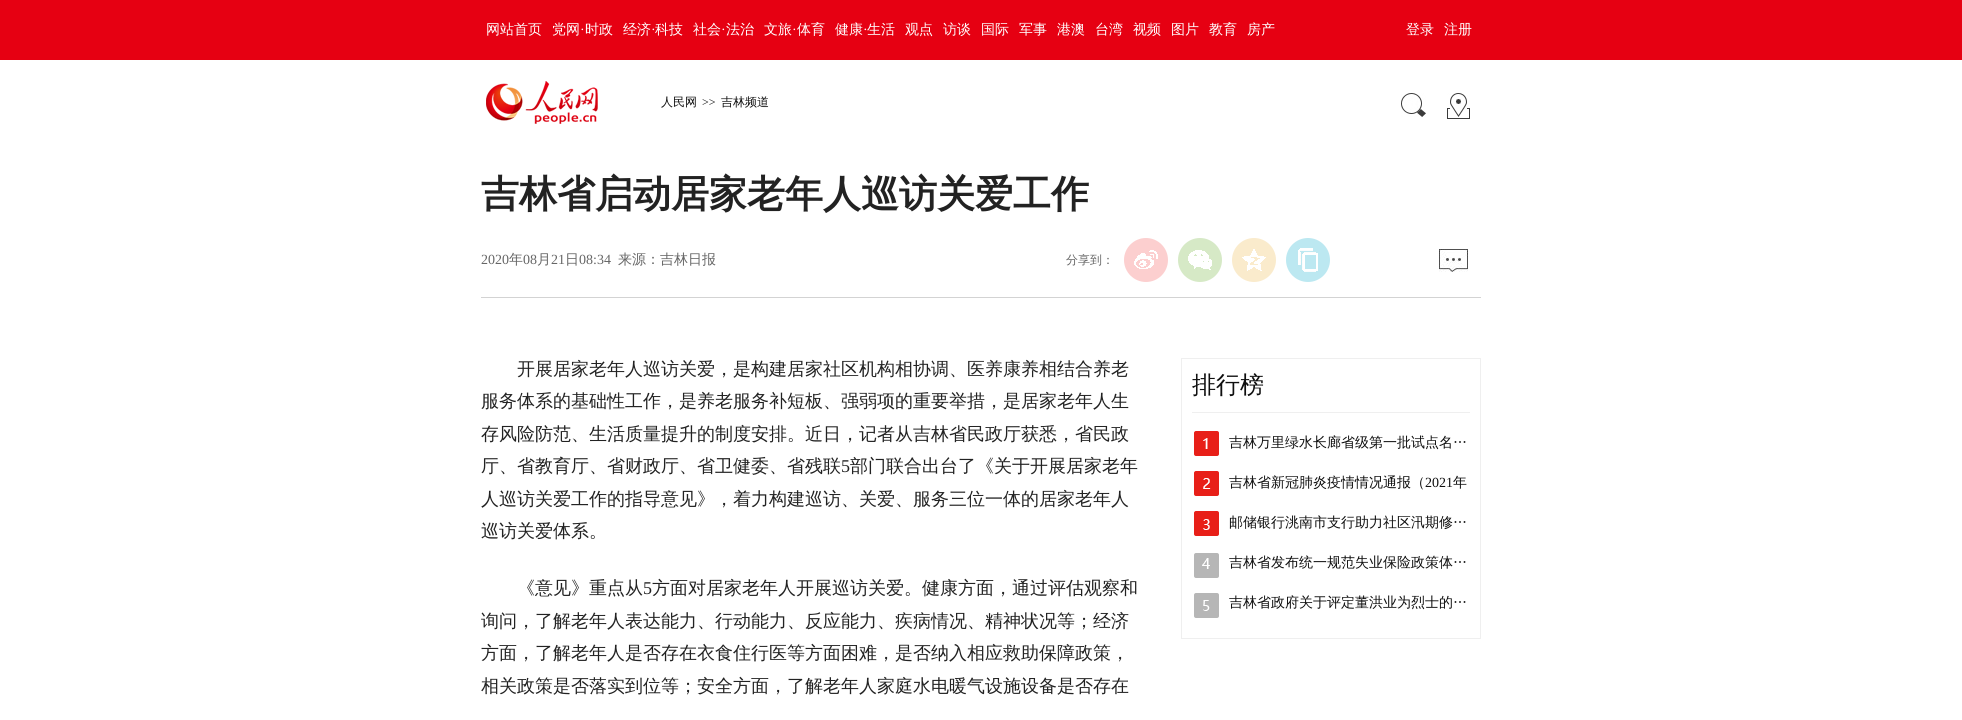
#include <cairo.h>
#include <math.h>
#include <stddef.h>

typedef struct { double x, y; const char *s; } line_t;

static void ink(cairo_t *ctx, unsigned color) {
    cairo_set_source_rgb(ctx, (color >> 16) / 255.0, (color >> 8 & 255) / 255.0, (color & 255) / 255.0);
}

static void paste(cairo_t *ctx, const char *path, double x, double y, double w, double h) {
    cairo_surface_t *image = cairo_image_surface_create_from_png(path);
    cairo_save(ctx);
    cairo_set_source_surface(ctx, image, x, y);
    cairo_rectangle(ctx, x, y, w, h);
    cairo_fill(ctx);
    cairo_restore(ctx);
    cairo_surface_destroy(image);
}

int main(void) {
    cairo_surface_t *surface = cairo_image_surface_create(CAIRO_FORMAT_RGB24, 1962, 720);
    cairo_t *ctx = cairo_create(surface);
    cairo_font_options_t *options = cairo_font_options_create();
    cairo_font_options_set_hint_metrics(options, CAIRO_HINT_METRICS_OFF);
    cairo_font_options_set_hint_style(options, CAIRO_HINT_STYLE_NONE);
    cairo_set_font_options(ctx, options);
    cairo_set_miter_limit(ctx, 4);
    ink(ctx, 0xFFFFFF);
    cairo_paint(ctx);
    ink(ctx, 0xE60012);
    cairo_rectangle(ctx, 0, 0, 1962, 60);
    cairo_fill(ctx);
    cairo_select_font_face(ctx, "WenQuanYi Zen Hei Medium", CAIRO_FONT_SLANT_NORMAL, CAIRO_FONT_WEIGHT_NORMAL);
    cairo_set_font_size(ctx, 14);
    ink(ctx, 0xFFFFFF);
    cairo_move_to(ctx, 486, 34);
    cairo_show_text(ctx, "网站首页");
    cairo_move_to(ctx, 552, 34);
    cairo_show_text(ctx, "党网");
    cairo_select_font_face(ctx, "Liberation Serif", CAIRO_FONT_SLANT_NORMAL, CAIRO_FONT_WEIGHT_NORMAL);
    cairo_move_to(ctx, 580, 34);
    cairo_show_text(ctx, "·");
    cairo_select_font_face(ctx, "WenQuanYi Zen Hei Medium", CAIRO_FONT_SLANT_NORMAL, CAIRO_FONT_WEIGHT_NORMAL);
    cairo_move_to(ctx, 585, 34);
    cairo_show_text(ctx, "时政");
    cairo_move_to(ctx, 623, 34);
    cairo_show_text(ctx, "经济");
    cairo_select_font_face(ctx, "Liberation Serif", CAIRO_FONT_SLANT_NORMAL, CAIRO_FONT_WEIGHT_NORMAL);
    cairo_move_to(ctx, 651, 34);
    cairo_show_text(ctx, "·");
    cairo_select_font_face(ctx, "WenQuanYi Zen Hei Medium", CAIRO_FONT_SLANT_NORMAL, CAIRO_FONT_WEIGHT_NORMAL);
    cairo_move_to(ctx, 655, 34);
    cairo_show_text(ctx, "科技");
    cairo_move_to(ctx, 693, 34);
    cairo_show_text(ctx, "社会");
    cairo_select_font_face(ctx, "Liberation Serif", CAIRO_FONT_SLANT_NORMAL, CAIRO_FONT_WEIGHT_NORMAL);
    cairo_move_to(ctx, 721, 34);
    cairo_show_text(ctx, "·");
    cairo_select_font_face(ctx, "WenQuanYi Zen Hei Medium", CAIRO_FONT_SLANT_NORMAL, CAIRO_FONT_WEIGHT_NORMAL);
    cairo_move_to(ctx, 726, 34);
    cairo_show_text(ctx, "法治");
    cairo_move_to(ctx, 764, 34);
    cairo_show_text(ctx, "文旅");
    cairo_select_font_face(ctx, "Liberation Serif", CAIRO_FONT_SLANT_NORMAL, CAIRO_FONT_WEIGHT_NORMAL);
    cairo_move_to(ctx, 792, 34);
    cairo_show_text(ctx, "·");
    cairo_select_font_face(ctx, "WenQuanYi Zen Hei Medium", CAIRO_FONT_SLANT_NORMAL, CAIRO_FONT_WEIGHT_NORMAL);
    cairo_move_to(ctx, 797, 34);
    cairo_show_text(ctx, "体育");
    cairo_move_to(ctx, 835, 34);
    cairo_show_text(ctx, "健康");
    cairo_select_font_face(ctx, "Liberation Serif", CAIRO_FONT_SLANT_NORMAL, CAIRO_FONT_WEIGHT_NORMAL);
    cairo_move_to(ctx, 863, 34);
    cairo_show_text(ctx, "·");
    cairo_select_font_face(ctx, "WenQuanYi Zen Hei Medium", CAIRO_FONT_SLANT_NORMAL, CAIRO_FONT_WEIGHT_NORMAL);
    {
        static const line_t items[] = {
            {867, 34, "生活"},
            {905, 34, "观点"},
            {943, 34, "访谈"},
            {981, 34, "国际"},
            {1019, 34, "军事"},
            {1057, 34, "港澳"},
            {1095, 34, "台湾"},
            {1133, 34, "视频"},
            {1171, 34, "图片"},
            {1209, 34, "教育"},
            {1247, 34, "房产"},
            {1406, 34, "登录"},
            {1444, 34, "注册"},
        };
        for (size_t i = 0; i < sizeof items / sizeof *items; i++) {
            cairo_move_to(ctx, items[i].x, items[i].y);
            cairo_show_text(ctx, items[i].s);
        }
    }
    paste(ctx, "media/1.png", 486, 81, 112, 43);
    cairo_set_font_size(ctx, 12);
    ink(ctx, 0x0F0F0F);
    cairo_move_to(ctx, 661, 106);
    cairo_show_text(ctx, "人民网");
    cairo_select_font_face(ctx, "Liberation Serif", CAIRO_FONT_SLANT_NORMAL, CAIRO_FONT_WEIGHT_NORMAL);
    cairo_move_to(ctx, 702, 106);
    cairo_show_text(ctx, ">>");
    cairo_select_font_face(ctx, "WenQuanYi Zen Hei Medium", CAIRO_FONT_SLANT_NORMAL, CAIRO_FONT_WEIGHT_NORMAL);
    cairo_move_to(ctx, 721, 106);
    cairo_show_text(ctx, "吉林频道");
    paste(ctx, "media/2.png", 1401, 93, 25, 24);
    paste(ctx, "media/3.png", 1447, 93, 23, 26);
    ink(ctx, 0xD3D3D3);
    cairo_rectangle(ctx, 481, 297, 1000, 1);
    cairo_fill(ctx);
    cairo_select_font_face(ctx, "WenQuanYi Zen Hei", CAIRO_FONT_SLANT_NORMAL, CAIRO_FONT_WEIGHT_BOLD);
    cairo_set_font_size(ctx, 38);
    ink(ctx, 0x222222);
    cairo_move_to(ctx, 481, 207);
    cairo_show_text(ctx, "吉林省启动居家老年人巡访关爱工作");
    cairo_select_font_face(ctx, "Liberation Serif", CAIRO_FONT_SLANT_NORMAL, CAIRO_FONT_WEIGHT_NORMAL);
    cairo_set_font_size(ctx, 14);
    ink(ctx, 0x666666);
    cairo_move_to(ctx, 481, 264);
    cairo_show_text(ctx, "2020");
    cairo_select_font_face(ctx, "WenQuanYi Zen Hei Medium", CAIRO_FONT_SLANT_NORMAL, CAIRO_FONT_WEIGHT_NORMAL);
    cairo_move_to(ctx, 509, 264);
    cairo_show_text(ctx, "年");
    cairo_select_font_face(ctx, "Liberation Serif", CAIRO_FONT_SLANT_NORMAL, CAIRO_FONT_WEIGHT_NORMAL);
    cairo_move_to(ctx, 523, 264);
    cairo_show_text(ctx, "08");
    cairo_select_font_face(ctx, "WenQuanYi Zen Hei Medium", CAIRO_FONT_SLANT_NORMAL, CAIRO_FONT_WEIGHT_NORMAL);
    cairo_move_to(ctx, 537, 264);
    cairo_show_text(ctx, "月");
    cairo_select_font_face(ctx, "Liberation Serif", CAIRO_FONT_SLANT_NORMAL, CAIRO_FONT_WEIGHT_NORMAL);
    cairo_move_to(ctx, 551, 264);
    cairo_show_text(ctx, "21");
    cairo_select_font_face(ctx, "WenQuanYi Zen Hei Medium", CAIRO_FONT_SLANT_NORMAL, CAIRO_FONT_WEIGHT_NORMAL);
    cairo_move_to(ctx, 565, 264);
    cairo_show_text(ctx, "日");
    cairo_select_font_face(ctx, "Liberation Serif", CAIRO_FONT_SLANT_NORMAL, CAIRO_FONT_WEIGHT_NORMAL);
    cairo_move_to(ctx, 579, 264);
    cairo_show_text(ctx, "08:34");
    cairo_select_font_face(ctx, "WenQuanYi Zen Hei Medium", CAIRO_FONT_SLANT_NORMAL, CAIRO_FONT_WEIGHT_NORMAL);
    cairo_move_to(ctx, 618, 264);
    cairo_show_text(ctx, "来源：吉林日报");
    cairo_set_font_size(ctx, 12);
    cairo_move_to(ctx, 1066, 264);
    cairo_show_text(ctx, "分享到：");
    ink(ctx, 0xFCCFCF);
    cairo_new_path(ctx);
    cairo_arc(ctx, 1146, 260, 22, 0, 2 * M_PI);
    cairo_fill(ctx);
    paste(ctx, "media/4.png", 1134, 250, 24, 19);
    ink(ctx, 0xD6E9C6);
    cairo_arc(ctx, 1200, 260, 22, 0, 2 * M_PI);
    cairo_fill(ctx);
    paste(ctx, "media/5.png", 1188, 250, 24, 20);
    ink(ctx, 0xFAEBCC);
    cairo_arc(ctx, 1254, 260, 22, 0, 2 * M_PI);
    cairo_fill(ctx);
    paste(ctx, "media/6.png", 1242, 249, 24, 22);
    ink(ctx, 0xBCE8F1);
    cairo_arc(ctx, 1308, 260, 22, 0, 2 * M_PI);
    cairo_fill(ctx);
    paste(ctx, "media/7.png", 1298, 248, 20, 24);
    paste(ctx, "media/8.png", 1439, 249, 29, 23);
    cairo_set_font_size(ctx, 18);
    ink(ctx, 0x222222);
    {
        static const line_t items[] = {
            {517, 375, "开展居家老年人巡访关爱，是构建居家社区机构相协调、医养康养相结合养老"},
            {481, 407, "服务体系的基础性工作，是养老服务补短板、强弱项的重要举措，是居家老年人生"},
            {481, 440, "存风险防范、生活质量提升的制度安排。近日，记者从吉林省民政厅获悉，省民政"},
            {481, 472, "厅、省教育厅、省财政厅、省卫健委、省残联"},
        };
        for (size_t i = 0; i < sizeof items / sizeof *items; i++) {
            cairo_move_to(ctx, items[i].x, items[i].y);
            cairo_show_text(ctx, items[i].s);
        }
    }
    cairo_select_font_face(ctx, "Liberation Serif", CAIRO_FONT_SLANT_NORMAL, CAIRO_FONT_WEIGHT_NORMAL);
    cairo_move_to(ctx, 841, 472);
    cairo_show_text(ctx, "5");
    cairo_select_font_face(ctx, "WenQuanYi Zen Hei Medium", CAIRO_FONT_SLANT_NORMAL, CAIRO_FONT_WEIGHT_NORMAL);
    {
        static const line_t items[] = {
            {850, 472, "部门联合出台了《关于开展居家老年"},
            {481, 505, "人巡访关爱工作的指导意见》，着力构建巡访、关爱、服务三位一体的居家老年人"},
            {481, 537, "巡访关爱体系。"},
            {517, 594, "《意见》重点从"},
        };
        for (size_t i = 0; i < sizeof items / sizeof *items; i++) {
            cairo_move_to(ctx, items[i].x, items[i].y);
            cairo_show_text(ctx, items[i].s);
        }
    }
    cairo_select_font_face(ctx, "Liberation Serif", CAIRO_FONT_SLANT_NORMAL, CAIRO_FONT_WEIGHT_NORMAL);
    cairo_move_to(ctx, 643, 594);
    cairo_show_text(ctx, "5");
    cairo_select_font_face(ctx, "WenQuanYi Zen Hei Medium", CAIRO_FONT_SLANT_NORMAL, CAIRO_FONT_WEIGHT_NORMAL);
    {
        static const line_t items[] = {
            {652, 594, "方面对居家老年人开展巡访关爱。健康方面，通过评估观察和"},
            {481, 627, "询问，了解老年人表达能力、行动能力、反应能力、疾病情况、精神状况等；经济"},
            {481, 659, "方面，了解老年人是否存在衣食住行医等方面困难，是否纳入相应救助保障政策，"},
            {481, 692, "相关政策是否落实到位等；安全方面，了解老年人家庭水电暖气设施设备是否存在"},
        };
        for (size_t i = 0; i < sizeof items / sizeof *items; i++) {
            cairo_move_to(ctx, items[i].x, items[i].y);
            cairo_show_text(ctx, items[i].s);
        }
    }
    cairo_rectangle(ctx, 1181.5, 358.5, 299, 280);
    ink(ctx, 0xEFEFEF);
    cairo_set_line_width(ctx, 1);
    cairo_stroke(ctx);
    cairo_rectangle(ctx, 1192, 412, 278, 1);
    cairo_fill(ctx);
    cairo_set_font_size(ctx, 24);
    ink(ctx, 0x0F0F0F);
    cairo_move_to(ctx, 1192, 393);
    cairo_show_text(ctx, "排行榜");
    paste(ctx, "media/9.png", 1194, 431, 25, 187);
    cairo_set_font_size(ctx, 14);
    cairo_move_to(ctx, 1229, 447);
    cairo_show_text(ctx, "吉林万里绿水长廊省级第一批试点名…");
    cairo_move_to(ctx, 1229, 487);
    cairo_show_text(ctx, "吉林省新冠肺炎疫情情况通报（");
    cairo_select_font_face(ctx, "Liberation Serif", CAIRO_FONT_SLANT_NORMAL, CAIRO_FONT_WEIGHT_NORMAL);
    cairo_move_to(ctx, 1425, 487);
    cairo_show_text(ctx, "2021");
    cairo_select_font_face(ctx, "WenQuanYi Zen Hei Medium", CAIRO_FONT_SLANT_NORMAL, CAIRO_FONT_WEIGHT_NORMAL);
    {
        static const line_t items[] = {
            {1453, 487, "年"},
            {1229, 527, "邮储银行洮南市支行助力社区汛期修…"},
            {1229, 567, "吉林省发布统一规范失业保险政策体…"},
            {1229, 607, "吉林省政府关于评定董洪业为烈士的…"},
        };
        for (size_t i = 0; i < sizeof items / sizeof *items; i++) {
            cairo_move_to(ctx, items[i].x, items[i].y);
            cairo_show_text(ctx, items[i].s);
        }
    }
    cairo_surface_write_to_png(surface, "image.png");
    cairo_font_options_destroy(options);
    cairo_destroy(ctx);
    cairo_surface_destroy(surface);
    return 0;
}
